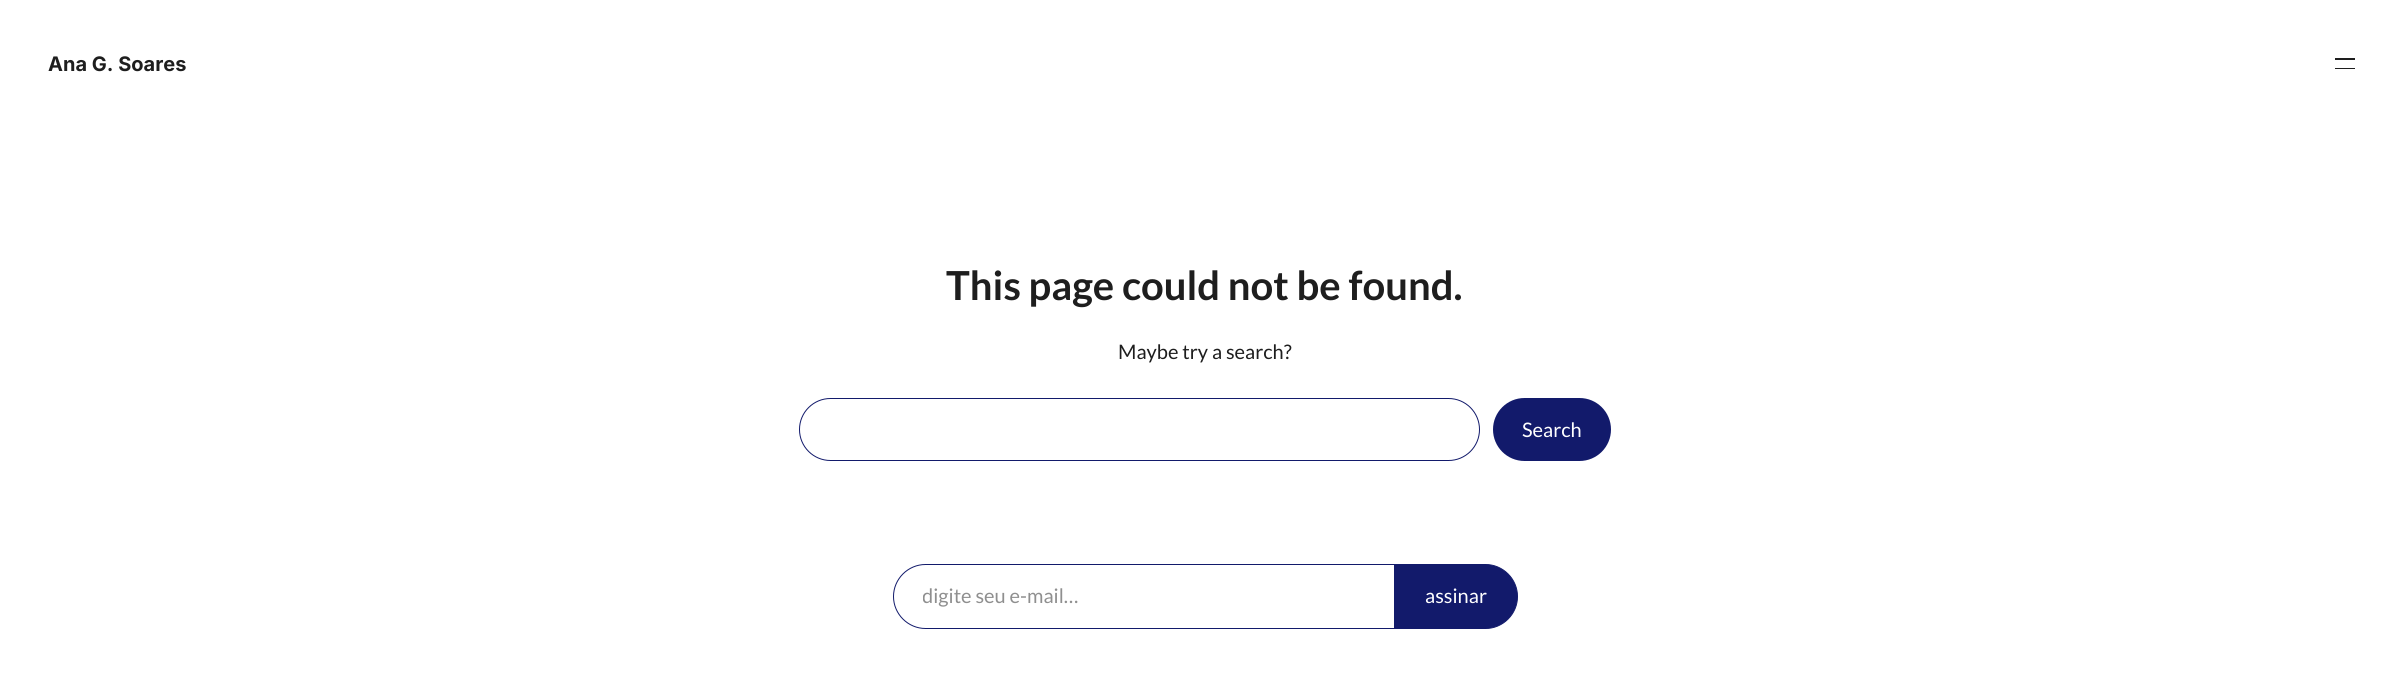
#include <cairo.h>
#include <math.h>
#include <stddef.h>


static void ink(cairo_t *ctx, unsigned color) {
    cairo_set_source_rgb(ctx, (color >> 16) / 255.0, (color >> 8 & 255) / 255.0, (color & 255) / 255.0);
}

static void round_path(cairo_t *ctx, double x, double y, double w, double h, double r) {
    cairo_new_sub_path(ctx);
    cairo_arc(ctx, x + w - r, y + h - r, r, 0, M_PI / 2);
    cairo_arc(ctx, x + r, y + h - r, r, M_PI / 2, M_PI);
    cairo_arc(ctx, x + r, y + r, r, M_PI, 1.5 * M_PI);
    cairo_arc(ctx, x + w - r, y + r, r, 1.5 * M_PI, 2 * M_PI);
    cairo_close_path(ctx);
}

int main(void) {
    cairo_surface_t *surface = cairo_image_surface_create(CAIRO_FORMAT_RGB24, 2408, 698);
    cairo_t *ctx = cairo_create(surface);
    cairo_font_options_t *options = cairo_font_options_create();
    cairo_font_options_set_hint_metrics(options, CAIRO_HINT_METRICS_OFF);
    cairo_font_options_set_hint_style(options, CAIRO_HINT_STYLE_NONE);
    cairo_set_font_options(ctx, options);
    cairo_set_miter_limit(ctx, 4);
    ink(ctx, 0xFFFFFF);
    cairo_paint(ctx);
    cairo_select_font_face(ctx, "Inter", CAIRO_FONT_SLANT_NORMAL, CAIRO_FONT_WEIGHT_BOLD);
    cairo_set_font_size(ctx, 20);
    ink(ctx, 0x1E1E1E);
    cairo_move_to(ctx, 48, 71);
    cairo_show_text(ctx, "Ana G. Soares");
    cairo_rectangle(ctx, 2335, 58, 20, 2);
    cairo_fill(ctx);
    cairo_rectangle(ctx, 2335, 68, 20, 1);
    cairo_fill(ctx);
    cairo_select_font_face(ctx, "Lato", CAIRO_FONT_SLANT_NORMAL, CAIRO_FONT_WEIGHT_BOLD);
    cairo_set_font_size(ctx, 40);
    cairo_move_to(ctx, 946, 300);
    cairo_show_text(ctx, "This page could not be found.");
    cairo_select_font_face(ctx, "Lato", CAIRO_FONT_SLANT_NORMAL, CAIRO_FONT_WEIGHT_NORMAL);
    cairo_set_font_size(ctx, 20);
    cairo_move_to(ctx, 1118, 359);
    cairo_show_text(ctx, "Maybe try a search?");
    round_path(ctx, 799.5, 398.5, 680, 62, 31);
    ink(ctx, 0x121A6B);
    cairo_set_line_width(ctx, 1);
    cairo_stroke(ctx);
    round_path(ctx, 1493, 398, 118, 63, 31.5);
    cairo_fill(ctx);
    ink(ctx, 0xFFFFFF);
    cairo_move_to(ctx, 1522, 437);
    cairo_show_text(ctx, "Search");
    cairo_new_path(ctx);
    cairo_move_to(ctx, 925.5, 564.5);
    cairo_line_to(ctx, 1394.5, 564.5);
    cairo_line_to(ctx, 1394.5, 628.5);
    cairo_line_to(ctx, 925.5, 628.5);
    cairo_curve_to(ctx, 908, 628.5, 893.5, 614, 893.5, 596.5);
    cairo_curve_to(ctx, 893.5, 579, 908, 564.5, 925.5, 564.5);
    cairo_close_path(ctx);
    ink(ctx, 0x121A6B);
    cairo_stroke(ctx);
    cairo_save(ctx);
    cairo_rectangle(ctx, 923, 584, 442, 24);
    cairo_clip(ctx);
    ink(ctx, 0x8F8F8F);
    cairo_move_to(ctx, 922, 603);
    cairo_show_text(ctx, "digite seu e-mail…");
    cairo_restore(ctx);
    cairo_new_path(ctx);
    cairo_move_to(ctx, 1395.5, 564.5);
    cairo_line_to(ctx, 1485.5, 564.5);
    cairo_curve_to(ctx, 1503, 564.5, 1517.5, 579, 1517.5, 596.5);
    cairo_curve_to(ctx, 1517.5, 614, 1503, 628.5, 1485.5, 628.5);
    cairo_line_to(ctx, 1395.5, 628.5);
    cairo_close_path(ctx);
    cairo_fill_preserve(ctx);
    cairo_stroke(ctx);
    ink(ctx, 0xFFFFFF);
    cairo_move_to(ctx, 1425, 603);
    cairo_show_text(ctx, "assinar");
    cairo_surface_write_to_png(surface, "image.png");
    cairo_font_options_destroy(options);
    cairo_destroy(ctx);
    cairo_surface_destroy(surface);
    return 0;
}
